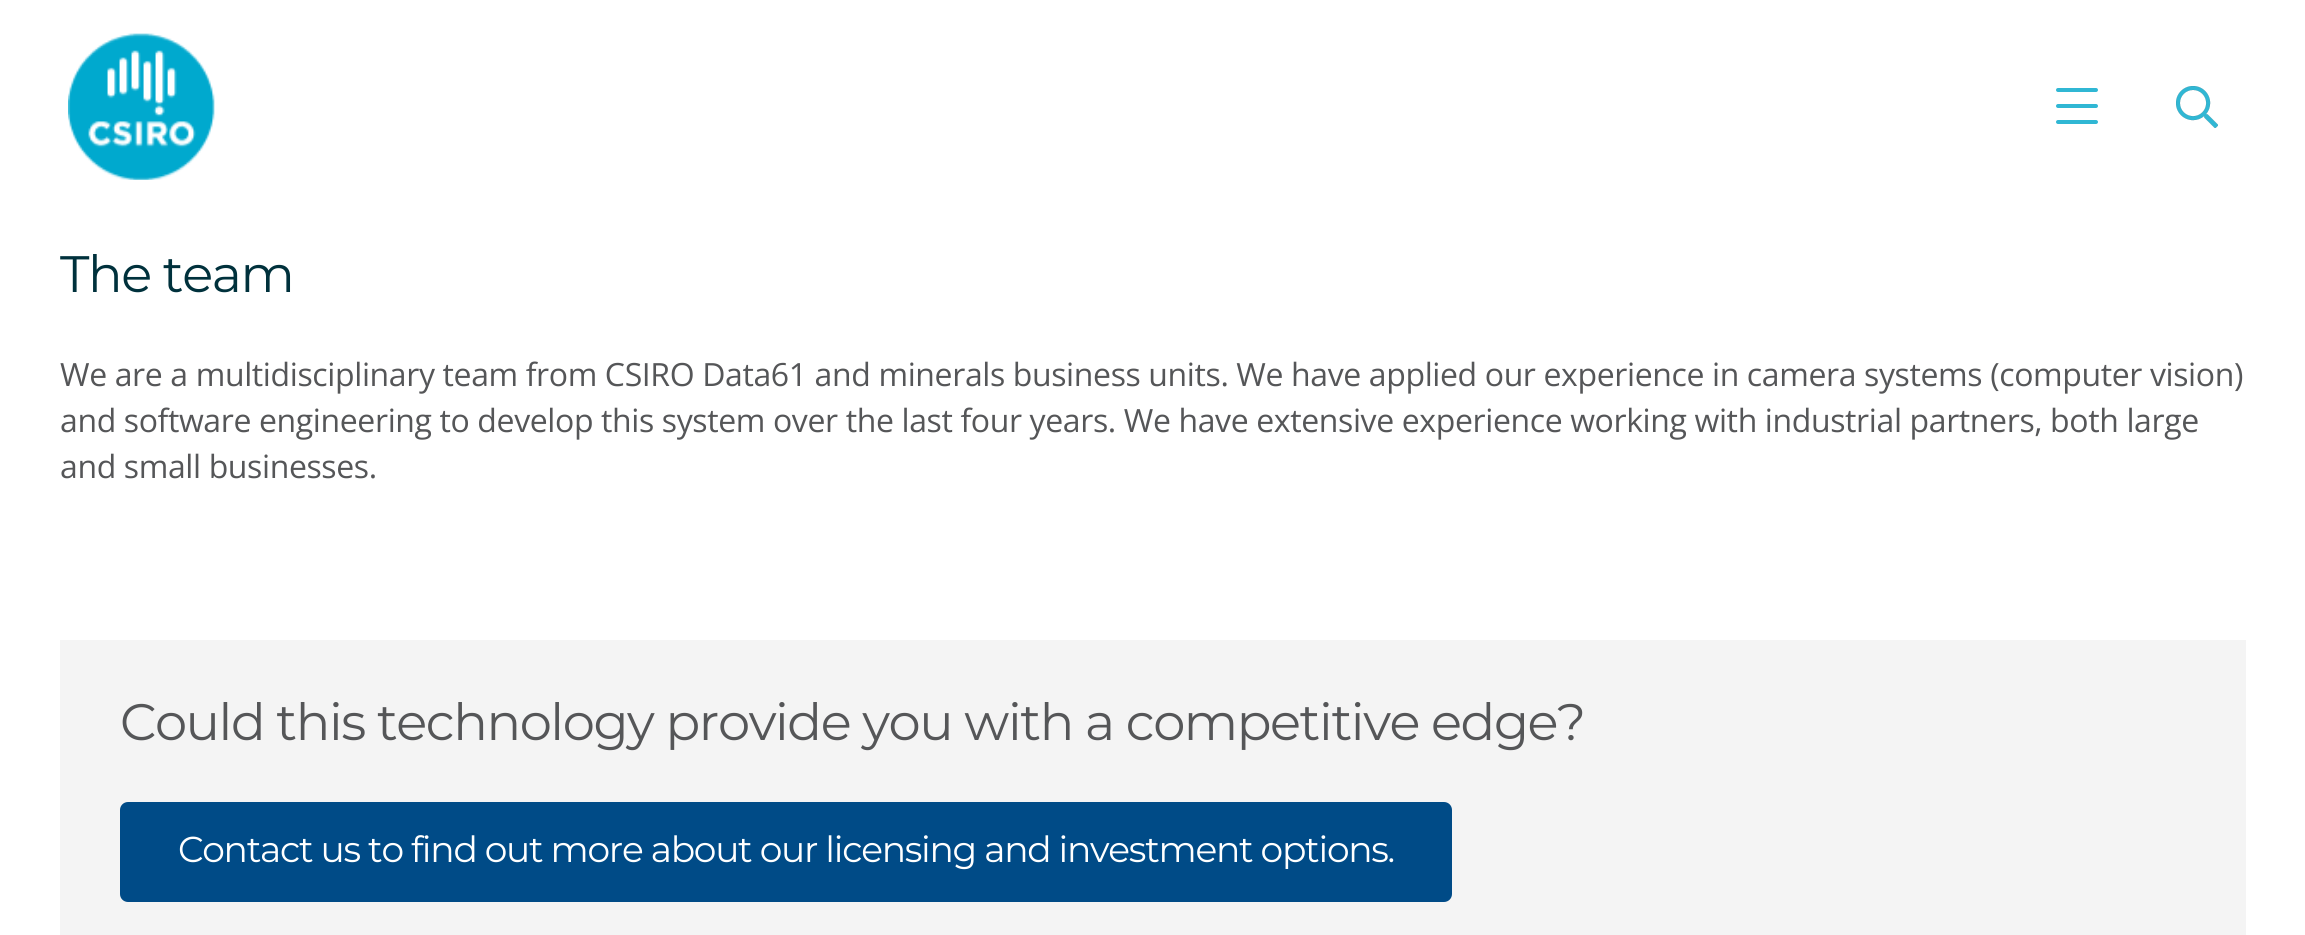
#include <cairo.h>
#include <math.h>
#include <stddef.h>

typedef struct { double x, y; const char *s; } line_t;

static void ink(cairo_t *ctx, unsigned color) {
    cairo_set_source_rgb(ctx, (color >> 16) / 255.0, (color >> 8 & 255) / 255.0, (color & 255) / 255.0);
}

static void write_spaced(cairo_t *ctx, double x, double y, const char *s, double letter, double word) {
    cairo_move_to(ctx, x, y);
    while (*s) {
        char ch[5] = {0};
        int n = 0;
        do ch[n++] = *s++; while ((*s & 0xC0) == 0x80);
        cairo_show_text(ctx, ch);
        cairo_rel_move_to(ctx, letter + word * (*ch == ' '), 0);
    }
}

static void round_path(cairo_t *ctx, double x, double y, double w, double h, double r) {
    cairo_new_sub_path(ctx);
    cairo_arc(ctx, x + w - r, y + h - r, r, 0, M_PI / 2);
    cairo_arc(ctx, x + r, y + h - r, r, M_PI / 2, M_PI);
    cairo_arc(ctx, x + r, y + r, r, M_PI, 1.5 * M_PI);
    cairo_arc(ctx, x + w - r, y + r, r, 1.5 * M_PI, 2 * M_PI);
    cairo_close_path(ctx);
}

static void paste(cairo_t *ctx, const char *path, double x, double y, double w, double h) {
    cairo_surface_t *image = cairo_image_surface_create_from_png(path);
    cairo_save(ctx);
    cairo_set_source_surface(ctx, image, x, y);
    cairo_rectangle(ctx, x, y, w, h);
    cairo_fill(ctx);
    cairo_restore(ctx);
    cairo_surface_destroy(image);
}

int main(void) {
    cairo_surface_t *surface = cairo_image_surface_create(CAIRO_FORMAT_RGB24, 2305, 935);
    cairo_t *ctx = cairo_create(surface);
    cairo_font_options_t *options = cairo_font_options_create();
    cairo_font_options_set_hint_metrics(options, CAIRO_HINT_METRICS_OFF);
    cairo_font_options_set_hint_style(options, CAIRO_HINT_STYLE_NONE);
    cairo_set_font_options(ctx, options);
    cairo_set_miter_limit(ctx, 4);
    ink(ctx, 0xFFFFFF);
    cairo_paint(ctx);
    paste(ctx, "media/1.png", 68, 33, 147, 147);
    ink(ctx, 0x30B7D4);
    round_path(ctx, 2056, 104, 42, 4, 2);
    cairo_fill(ctx);
    round_path(ctx, 2056, 88, 42, 4, 2);
    cairo_fill(ctx);
    round_path(ctx, 2056, 120, 42, 4, 2);
    cairo_fill(ctx);
    paste(ctx, "media/2.png", 2176, 86, 42, 42);
    cairo_select_font_face(ctx, "Montserrat", CAIRO_FONT_SLANT_NORMAL, CAIRO_FONT_WEIGHT_NORMAL);
    cairo_set_font_size(ctx, 51.2);
    ink(ctx, 0x00313C);
    write_spaced(ctx, 60, 292, "The team", -1.4, 0);
    cairo_select_font_face(ctx, "Open Sans", CAIRO_FONT_SLANT_NORMAL, CAIRO_FONT_WEIGHT_NORMAL);
    cairo_set_font_size(ctx, 32);
    ink(ctx, 0x555658);
    {
        static const line_t items[] = {
            {60, 386, "We are a multidisciplinary team from CSIRO Data61 and minerals business units. We have applied our experience in camera systems (computer vision)"},
            {60, 432, "and software engineering to develop this system over the last four years. We have extensive experience working with industrial partners, both large"},
            {60, 478, "and small businesses."},
        };
        for (size_t i = 0; i < sizeof items / sizeof *items; i++) {
            write_spaced(ctx, items[i].x, items[i].y, items[i].s, -0.38, 0);
        }
    }
    ink(ctx, 0xF4F4F4);
    cairo_rectangle(ctx, 60, 640, 2186, 295);
    cairo_fill(ctx);
    cairo_select_font_face(ctx, "Montserrat", CAIRO_FONT_SLANT_NORMAL, CAIRO_FONT_WEIGHT_NORMAL);
    cairo_set_font_size(ctx, 51.2);
    ink(ctx, 0x555658);
    write_spaced(ctx, 120, 740, "Could this technology provide you with a competitive edge?", -1.4, 0);
    ink(ctx, 0x004B87);
    round_path(ctx, 121, 803, 1330, 98, 7);
    cairo_fill_preserve(ctx);
    cairo_stroke(ctx);
    cairo_set_font_size(ctx, 36);
    ink(ctx, 0xFFFFFF);
    write_spaced(ctx, 178, 862, "Contact us to find out more about our licensing and investment options.", -1.25, 0);
    cairo_surface_write_to_png(surface, "image.png");
    cairo_font_options_destroy(options);
    cairo_destroy(ctx);
    cairo_surface_destroy(surface);
    return 0;
}
